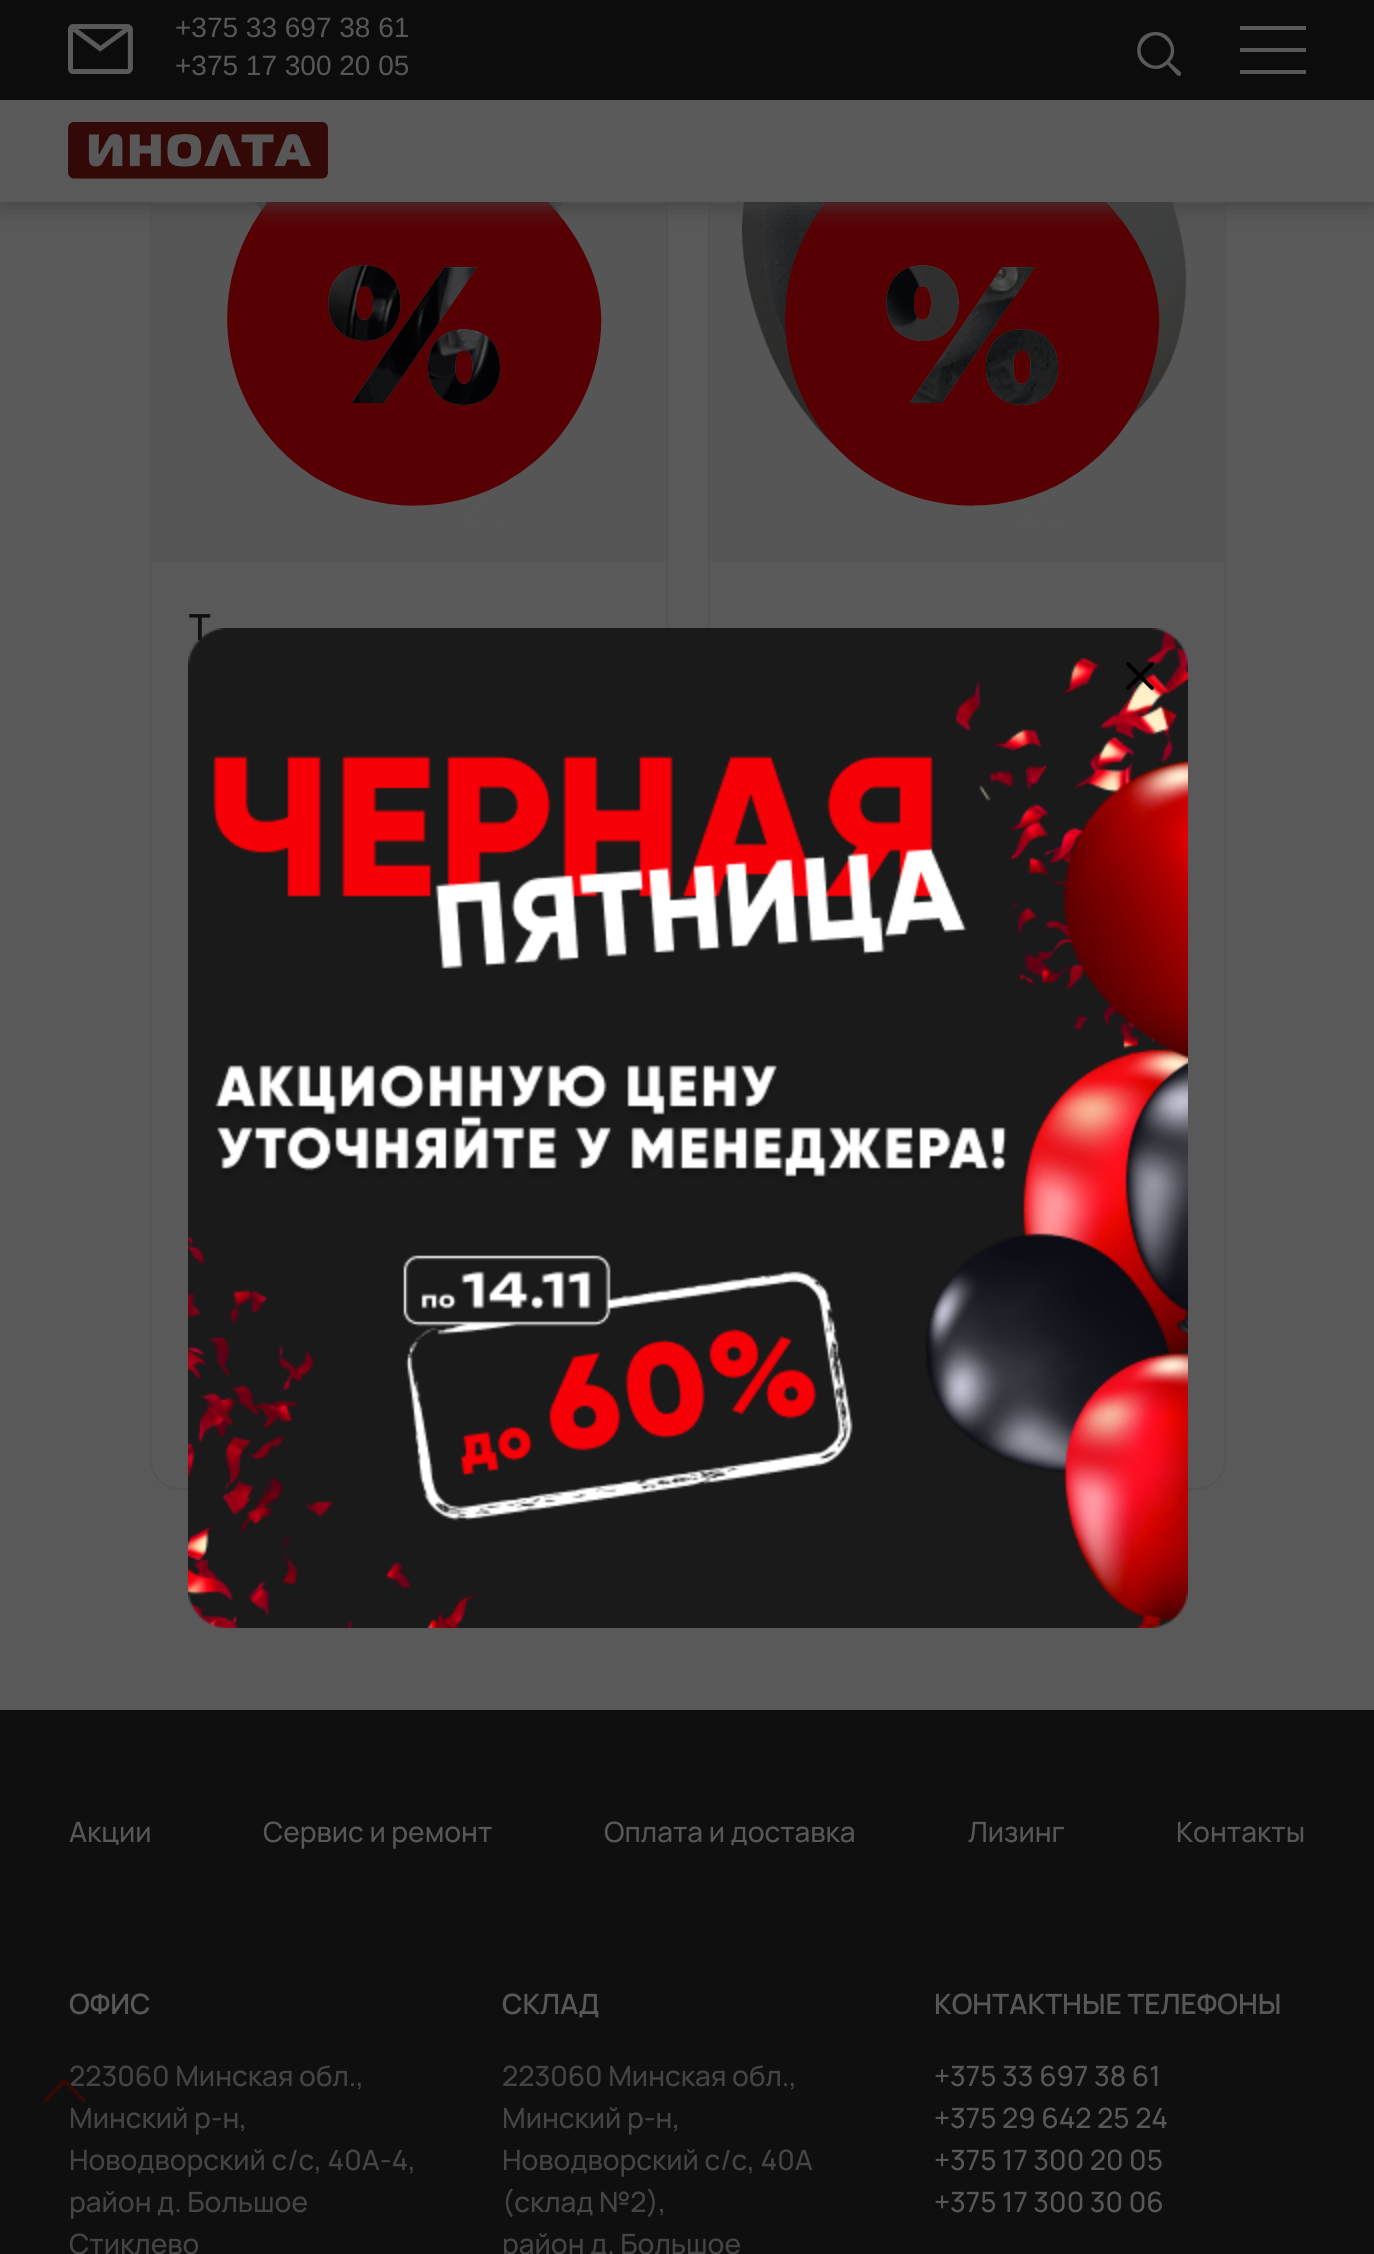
#include <cairo.h>
#include <math.h>
#include <stddef.h>

typedef struct { double x, y; const char *s; } line_t;
typedef struct { double x, y, w, h; unsigned color; } box_t;

static void ink(cairo_t *ctx, unsigned color) {
    cairo_set_source_rgb(ctx, (color >> 16) / 255.0, (color >> 8 & 255) / 255.0, (color & 255) / 255.0);
}

static void round_path(cairo_t *ctx, double x, double y, double w, double h, double r) {
    cairo_new_sub_path(ctx);
    cairo_arc(ctx, x + w - r, y + h - r, r, 0, M_PI / 2);
    cairo_arc(ctx, x + r, y + h - r, r, M_PI / 2, M_PI);
    cairo_arc(ctx, x + r, y + r, r, M_PI, 1.5 * M_PI);
    cairo_arc(ctx, x + w - r, y + r, r, 1.5 * M_PI, 2 * M_PI);
    cairo_close_path(ctx);
}

static void blur_box(cairo_t *ctx, double x, double y, double w, double h, double r, double blur, double alpha) {
    cairo_push_group_with_content(ctx, CAIRO_CONTENT_ALPHA);
    cairo_set_operator(ctx, CAIRO_OPERATOR_SOURCE);
    for (int i = 15; i >= -15 && fmin(w, h) + blur * i / 3 > 0; i -= 2) {
        double e = blur * i / 6;
        cairo_set_source_rgba(ctx, 0, 0, 0, alpha * erfc((i - 1) / 8.5) / 2);
        round_path(ctx, x - e, y - e, w + 2 * e, h + 2 * e, fmax(0, fmin(r + e + blur * .6, fmin(w, h) / 2 + e)));
        cairo_fill(ctx);
    }
    cairo_pattern_t *soft = cairo_pop_group(ctx);
    cairo_mask(ctx, soft);
    cairo_pattern_destroy(soft);
}

static void paste(cairo_t *ctx, const char *path, double x, double y, double w, double h) {
    cairo_surface_t *image = cairo_image_surface_create_from_png(path);
    cairo_save(ctx);
    cairo_set_source_surface(ctx, image, x, y);
    cairo_rectangle(ctx, x, y, w, h);
    cairo_fill(ctx);
    cairo_restore(ctx);
    cairo_surface_destroy(image);
}

int main(void) {
    cairo_surface_t *surface = cairo_image_surface_create(CAIRO_FORMAT_RGB24, 1374, 2254);
    cairo_t *ctx = cairo_create(surface);
    cairo_font_options_t *options = cairo_font_options_create();
    cairo_font_options_set_hint_metrics(options, CAIRO_HINT_METRICS_OFF);
    cairo_font_options_set_hint_style(options, CAIRO_HINT_STYLE_NONE);
    cairo_set_font_options(ctx, options);
    cairo_set_miter_limit(ctx, 4);
    ink(ctx, 0x595959);
    cairo_paint(ctx);
    round_path(ctx, 151, -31, 516, 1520, 29);
    ink(ctx, 0x545454);
    cairo_stroke(ctx);
    round_path(ctx, 709, -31, 516, 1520, 29);
    cairo_stroke(ctx);
    ink(ctx, 0x595959);
    cairo_rectangle(ctx, 150, 100, 1076, 102);
    cairo_fill(ctx);
    ink(ctx, 0x565656);
    cairo_rectangle(ctx, 152, 202, 514, 360);
    cairo_fill(ctx);
    paste(ctx, "media/5.png", 255, 202, 309, 203);
    paste(ctx, "media/4.png", 227, 202, 375, 319);
    cairo_rectangle(ctx, 710, 202, 514, 360);
    cairo_fill(ctx);
    paste(ctx, "media/6.png", 741, 202, 446, 254);
    paste(ctx, "media/7.png", 785, 202, 375, 319);
    cairo_save(ctx);
    cairo_rectangle(ctx, 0, 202, 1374, 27);
    cairo_clip(ctx);
    ink(ctx, 0x404040);
    blur_box(ctx, 0, 102, 1374, 102, 0, 12, 1);
    cairo_restore(ctx);
    ink(ctx, 0x0C0C0C);
    cairo_rectangle(ctx, 0, 0, 1374, 100);
    cairo_fill(ctx);
    paste(ctx, "media/1.png", 68, 24, 65, 50);
    cairo_select_font_face(ctx, "Liberation Sans", CAIRO_FONT_SLANT_NORMAL, CAIRO_FONT_WEIGHT_NORMAL);
    cairo_set_font_size(ctx, 28);
    ink(ctx, 0x575757);
    cairo_move_to(ctx, 175, 37);
    cairo_show_text(ctx, "+375 33 697 38 61");
    cairo_move_to(ctx, 175, 75);
    cairo_show_text(ctx, "+375 17 300 20 05");
    paste(ctx, "media/2.png", 1137, 32, 44, 44);
    {
        static const box_t items[] = {
            {1240, 26, 66, 4, 0x575757},
            {1240, 48, 66, 4, 0x575757},
            {1240, 70, 66, 4, 0x575757},
        };
        for (size_t i = 0; i < sizeof items / sizeof *items; i++) {
            ink(ctx, items[i].color);
            cairo_rectangle(ctx, items[i].x, items[i].y, items[i].w, items[i].h);
            cairo_fill(ctx);
        }
    }
    paste(ctx, "media/3.png", 68, 122, 260, 57);
    cairo_select_font_face(ctx, "Manrope SemiBold", CAIRO_FONT_SLANT_NORMAL, CAIRO_FONT_WEIGHT_NORMAL);
    cairo_set_font_size(ctx, 36);
    ink(ctx, 0x0F0F0F);
    cairo_move_to(ctx, 189, 640);
    cairo_show_text(ctx, "Т");
    cairo_rectangle(ctx, 0, 1710, 1374, 544);
    cairo_fill(ctx);
    cairo_select_font_face(ctx, "Manrope Medium", CAIRO_FONT_SLANT_NORMAL, CAIRO_FONT_WEIGHT_NORMAL);
    cairo_set_font_size(ctx, 28);
    ink(ctx, 0x454445);
    cairo_move_to(ctx, 69, 2086);
    cairo_show_text(ctx, "223060 Минская обл.,");
    ink(ctx, 0x320907);
    cairo_new_path(ctx);
    cairo_move_to(ctx, 63, 2079);
    cairo_curve_to(ctx, 64, 2079, 65, 2079, 66, 2079);
    cairo_line_to(ctx, 86, 2100);
    cairo_line_to(ctx, 86, 2101);
    cairo_curve_to(ctx, 84, 2106, 78, 2097, 77, 2096);
    cairo_line_to(ctx, 65, 2084);
    cairo_line_to(ctx, 52, 2096);
    cairo_curve_to(ctx, 52, 2097, 45, 2106, 43, 2101);
    cairo_line_to(ctx, 43, 2100);
    cairo_close_path(ctx);
    cairo_fill(ctx);
    ink(ctx, 0x575757);
    {
        static const line_t items[] = {
            {69, 1842, "Акции"},
            {263, 1842, "Сервис и ремонт"},
            {604, 1842, "Оплата и доставка"},
            {968, 1842, "Лизинг"},
            {1176, 1842, "Контакты"},
        };
        for (size_t i = 0; i < sizeof items / sizeof *items; i++) {
            cairo_move_to(ctx, items[i].x, items[i].y);
            cairo_show_text(ctx, items[i].s);
        }
    }
    cairo_select_font_face(ctx, "Manrope SemiBold", CAIRO_FONT_SLANT_NORMAL, CAIRO_FONT_WEIGHT_NORMAL);
    cairo_move_to(ctx, 69, 2014);
    cairo_show_text(ctx, "ОФИС");
    cairo_select_font_face(ctx, "Manrope Medium", CAIRO_FONT_SLANT_NORMAL, CAIRO_FONT_WEIGHT_NORMAL);
    ink(ctx, 0x454445);
    {
        static const line_t items[] = {
            {69, 2128, "Минский р-н,"},
            {69, 2170, "Новодворский с/с, 40А-4,"},
            {69, 2212, "район д. Большое"},
            {69, 2254, "Стиклево"},
        };
        for (size_t i = 0; i < sizeof items / sizeof *items; i++) {
            cairo_move_to(ctx, items[i].x, items[i].y);
            cairo_show_text(ctx, items[i].s);
        }
    }
    cairo_select_font_face(ctx, "Manrope SemiBold", CAIRO_FONT_SLANT_NORMAL, CAIRO_FONT_WEIGHT_NORMAL);
    ink(ctx, 0x575757);
    cairo_move_to(ctx, 502, 2014);
    cairo_show_text(ctx, "СКЛАД");
    cairo_select_font_face(ctx, "Manrope Medium", CAIRO_FONT_SLANT_NORMAL, CAIRO_FONT_WEIGHT_NORMAL);
    ink(ctx, 0x454445);
    {
        static const line_t items[] = {
            {502, 2086, "223060 Минская обл.,"},
            {502, 2128, "Минский р-н,"},
            {502, 2170, "Новодворский с/с, 40А"},
            {502, 2212, "(склад №2),"},
            {502, 2254, "район д. Большое"},
        };
        for (size_t i = 0; i < sizeof items / sizeof *items; i++) {
            cairo_move_to(ctx, items[i].x, items[i].y);
            cairo_show_text(ctx, items[i].s);
        }
    }
    cairo_select_font_face(ctx, "Manrope SemiBold", CAIRO_FONT_SLANT_NORMAL, CAIRO_FONT_WEIGHT_NORMAL);
    ink(ctx, 0x575757);
    cairo_move_to(ctx, 934, 2014);
    cairo_show_text(ctx, "КОНТАКТНЫЕ ТЕЛЕФОНЫ");
    cairo_select_font_face(ctx, "Manrope Medium", CAIRO_FONT_SLANT_NORMAL, CAIRO_FONT_WEIGHT_NORMAL);
    {
        static const line_t items[] = {
            {934, 2086, "+375 33 697 38 61"},
            {934, 2128, "+375 29 642 25 24"},
            {934, 2170, "+375 17 300 20 05"},
            {934, 2212, "+375 17 300 30 06"},
        };
        for (size_t i = 0; i < sizeof items / sizeof *items; i++) {
            cairo_move_to(ctx, items[i].x, items[i].y);
            cairo_show_text(ctx, items[i].s);
        }
    }
    paste(ctx, "media/8.png", 188, 628, 1000, 1000);
    paste(ctx, "media/9.png", 1126, 662, 28, 28);
    cairo_surface_write_to_png(surface, "image.png");
    cairo_font_options_destroy(options);
    cairo_destroy(ctx);
    cairo_surface_destroy(surface);
    return 0;
}
